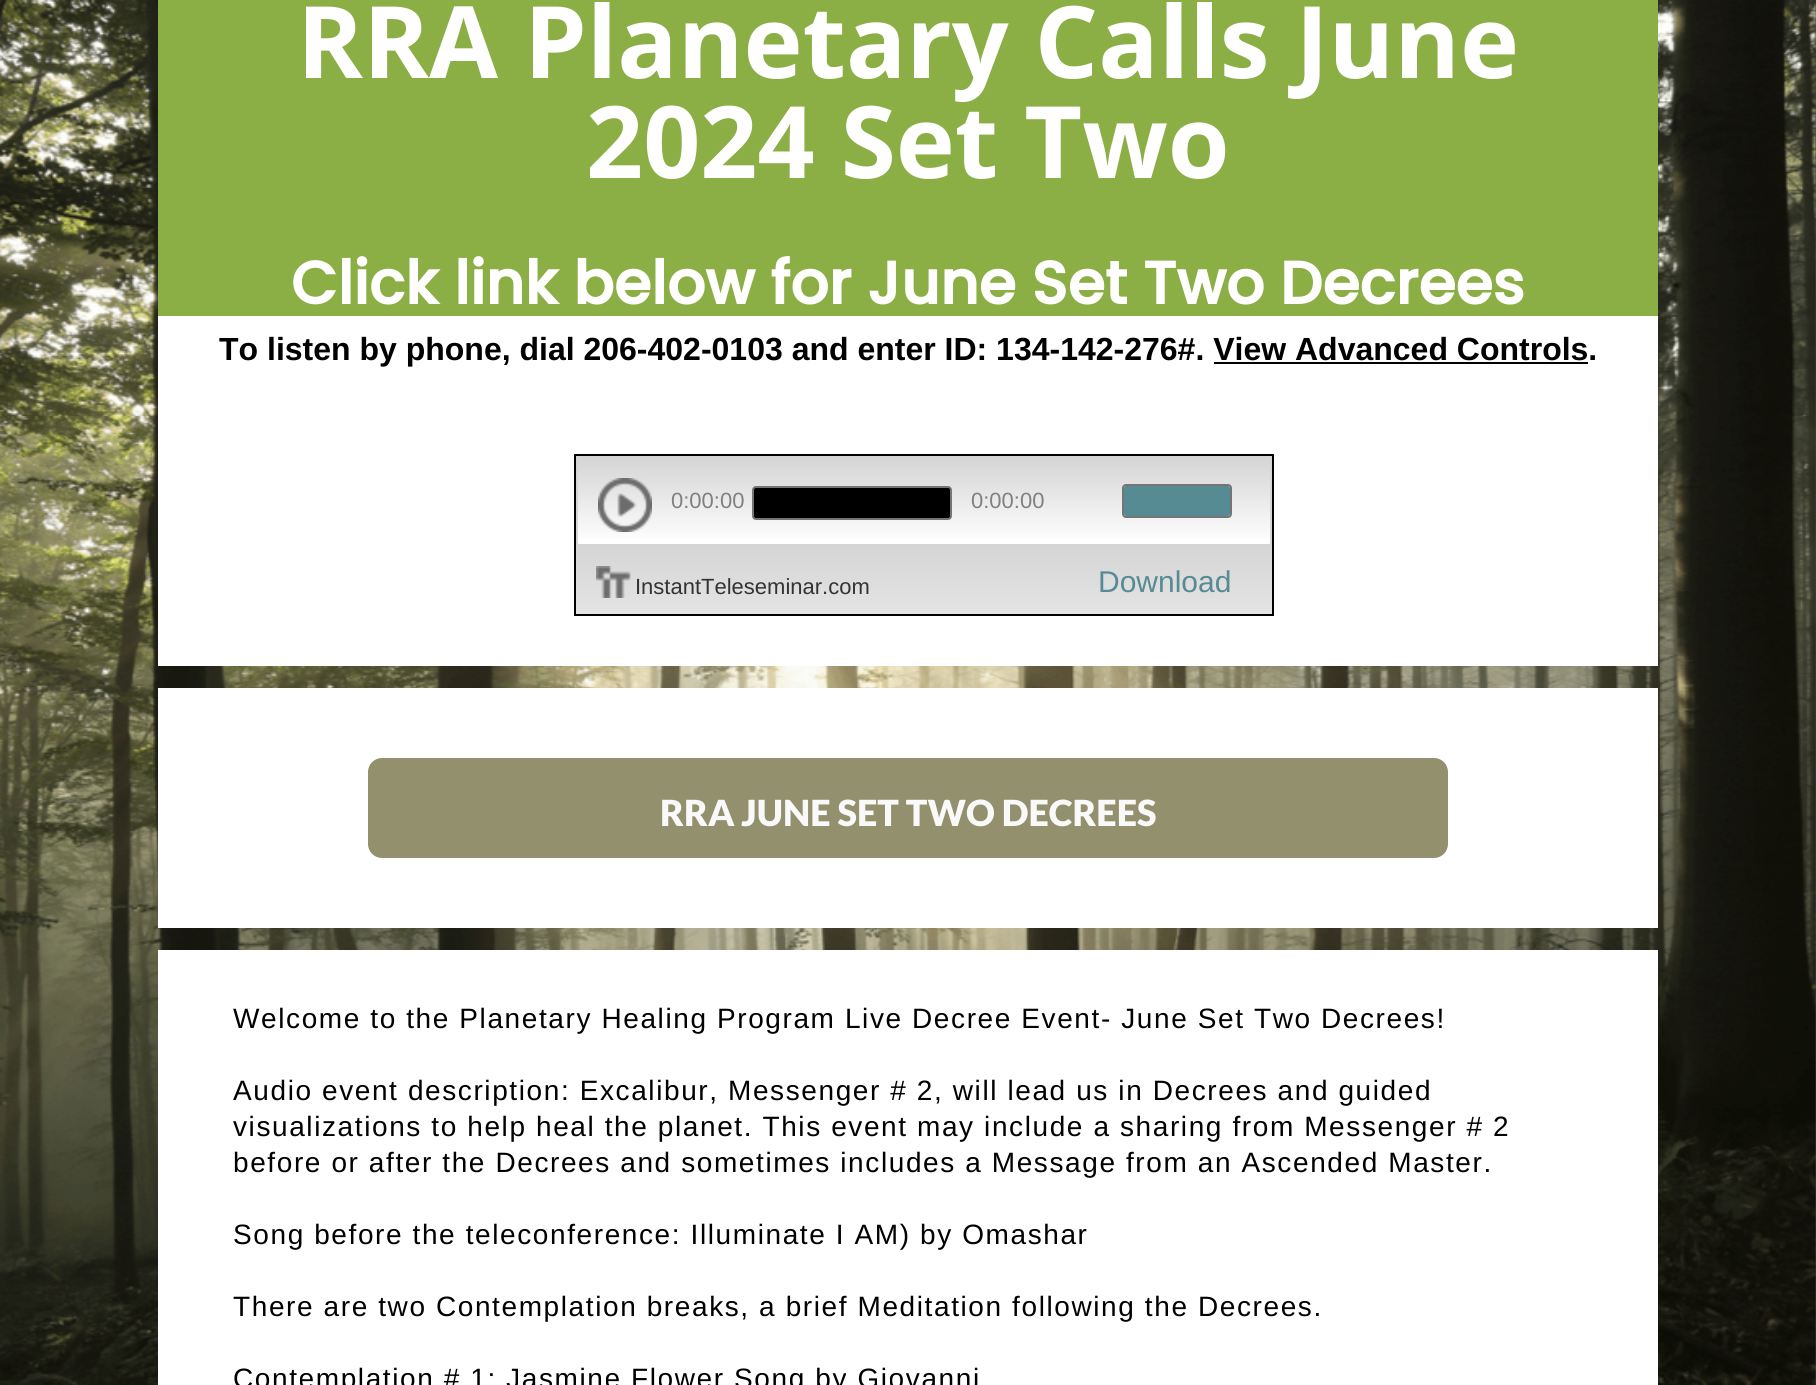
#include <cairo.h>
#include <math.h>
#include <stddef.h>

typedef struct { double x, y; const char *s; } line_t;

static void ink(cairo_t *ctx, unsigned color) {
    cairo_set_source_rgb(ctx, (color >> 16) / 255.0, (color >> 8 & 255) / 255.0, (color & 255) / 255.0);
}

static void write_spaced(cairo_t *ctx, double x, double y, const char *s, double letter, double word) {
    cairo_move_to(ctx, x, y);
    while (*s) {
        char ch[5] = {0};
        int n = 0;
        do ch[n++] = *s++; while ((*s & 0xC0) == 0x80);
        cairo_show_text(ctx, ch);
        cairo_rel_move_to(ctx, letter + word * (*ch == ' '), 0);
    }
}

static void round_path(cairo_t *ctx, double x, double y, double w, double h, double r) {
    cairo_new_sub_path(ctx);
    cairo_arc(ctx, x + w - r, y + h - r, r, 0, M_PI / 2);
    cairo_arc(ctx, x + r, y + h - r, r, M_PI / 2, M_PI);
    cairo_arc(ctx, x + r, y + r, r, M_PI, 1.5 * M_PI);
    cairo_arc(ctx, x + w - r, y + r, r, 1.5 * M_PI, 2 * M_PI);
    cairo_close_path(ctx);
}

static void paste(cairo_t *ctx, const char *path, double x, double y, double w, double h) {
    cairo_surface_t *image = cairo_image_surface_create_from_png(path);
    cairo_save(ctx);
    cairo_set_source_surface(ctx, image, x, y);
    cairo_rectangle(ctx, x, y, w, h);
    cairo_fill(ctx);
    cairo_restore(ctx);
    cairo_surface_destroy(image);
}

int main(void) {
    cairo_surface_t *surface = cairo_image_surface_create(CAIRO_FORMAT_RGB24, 1816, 1385);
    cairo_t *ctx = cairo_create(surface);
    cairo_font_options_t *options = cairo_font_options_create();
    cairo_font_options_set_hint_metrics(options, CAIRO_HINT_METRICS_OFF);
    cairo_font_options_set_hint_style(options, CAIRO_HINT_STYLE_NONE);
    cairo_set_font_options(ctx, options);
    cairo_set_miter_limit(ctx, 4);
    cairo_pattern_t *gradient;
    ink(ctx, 0x464646);
    cairo_paint(ctx);
    paste(ctx, "media/1.png", 0, 0, 1816, 1385);
    ink(ctx, 0x8BAE45);
    cairo_rectangle(ctx, 158, 0, 1500, 316);
    cairo_fill(ctx);
    cairo_select_font_face(ctx, "Open Sans", CAIRO_FONT_SLANT_NORMAL, CAIRO_FONT_WEIGHT_BOLD);
    cairo_set_font_size(ctx, 100);
    ink(ctx, 0xFFFFFF);
    cairo_move_to(ctx, 297, 78);
    cairo_show_text(ctx, "RRA Planetary Calls June");
    cairo_move_to(ctx, 586, 178);
    cairo_show_text(ctx, "2024 Set Two");
    cairo_select_font_face(ctx, "Poppins", CAIRO_FONT_SLANT_NORMAL, CAIRO_FONT_WEIGHT_BOLD);
    cairo_set_font_size(ctx, 60);
    cairo_move_to(ctx, 291, 304);
    cairo_show_text(ctx, "Click link below for June Set Two Decrees");
    cairo_rectangle(ctx, 158, 316, 1500, 350);
    cairo_fill(ctx);
    cairo_select_font_face(ctx, "Liberation Sans", CAIRO_FONT_SLANT_NORMAL, CAIRO_FONT_WEIGHT_BOLD);
    cairo_set_font_size(ctx, 32);
    ink(ctx, 0x000000);
    cairo_move_to(ctx, 219, 360);
    cairo_show_text(ctx, "To listen by phone, dial 206-402-0103 and enter ID: 134-142-276#. View Advanced Controls.");
    cairo_rectangle(ctx, 1214, 362, 374, 2);
    cairo_fill(ctx);
    cairo_rectangle(ctx, 575, 455, 698, 160);
    cairo_stroke(ctx);
    gradient = cairo_pattern_create_linear(924, 544, 924, 458);
    cairo_pattern_add_color_stop_rgba(gradient, 0, 1, 1, 1, 1);
    cairo_pattern_add_color_stop_rgba(gradient, 1, 0.835, 0.835, 0.835, 1);
    cairo_set_source(ctx, gradient);
    cairo_pattern_destroy(gradient);
    cairo_rectangle(ctx, 578, 458, 692, 81);
    cairo_fill(ctx);
    cairo_rectangle(ctx, 577, 457, 694, 88);
    ink(ctx, 0xD5D5D5);
    cairo_stroke(ctx);
    paste(ctx, "media/2.png", 598, 478, 54, 54);
    cairo_select_font_face(ctx, "Liberation Sans", CAIRO_FONT_SLANT_NORMAL, CAIRO_FONT_WEIGHT_NORMAL);
    cairo_set_font_size(ctx, 22);
    ink(ctx, 0x808080);
    cairo_move_to(ctx, 671, 508);
    cairo_show_text(ctx, "0:00:00");
    ink(ctx, 0x000000);
    round_path(ctx, 753, 487, 198, 32, 3);
    cairo_fill_preserve(ctx);
    ink(ctx, 0x757575);
    cairo_stroke(ctx);
    ink(ctx, 0x808080);
    cairo_move_to(ctx, 971, 508);
    cairo_show_text(ctx, "0:00:00");
    round_path(ctx, 1123, 485, 108, 32, 3);
    ink(ctx, 0x757575);
    cairo_stroke(ctx);
    ink(ctx, 0x568B94);
    round_path(ctx, 1124, 486, 106, 30, 2);
    cairo_fill(ctx);
    gradient = cairo_pattern_create_linear(924, 614, 924, 546);
    cairo_pattern_add_color_stop_rgba(gradient, 0, 0.894, 0.894, 0.894, 1);
    cairo_pattern_add_color_stop_rgba(gradient, 1, 0.835, 0.835, 0.835, 1);
    cairo_set_source(ctx, gradient);
    cairo_pattern_destroy(gradient);
    cairo_rectangle(ctx, 576, 546, 696, 68);
    cairo_fill(ctx);
    paste(ctx, "media/3.png", 596, 566, 35, 32);
    ink(ctx, 0x333333);
    cairo_move_to(ctx, 635, 594);
    cairo_show_text(ctx, "InstantTeleseminar.com");
    cairo_set_font_size(ctx, 30);
    ink(ctx, 0x568B94);
    cairo_move_to(ctx, 1098, 592);
    cairo_show_text(ctx, "Download");
    ink(ctx, 0xFFFFFF);
    cairo_rectangle(ctx, 158, 688, 1500, 240);
    cairo_fill(ctx);
    ink(ctx, 0x93906E);
    round_path(ctx, 368, 758, 1080, 100, 14);
    cairo_fill(ctx);
    cairo_select_font_face(ctx, "Lato Black", CAIRO_FONT_SLANT_NORMAL, CAIRO_FONT_WEIGHT_NORMAL);
    cairo_set_font_size(ctx, 36);
    ink(ctx, 0xF9F9F9);
    cairo_move_to(ctx, 660, 826);
    cairo_show_text(ctx, "RRA JUNE SET TWO DECREES");
    ink(ctx, 0xFFFFFF);
    cairo_rectangle(ctx, 158, 950, 1500, 435);
    cairo_fill(ctx);
    cairo_select_font_face(ctx, "Liberation Sans", CAIRO_FONT_SLANT_NORMAL, CAIRO_FONT_WEIGHT_NORMAL);
    cairo_set_font_size(ctx, 28);
    ink(ctx, 0x000000);
    {
        static const line_t items[] = {
            {233, 1028, "Welcome to the Planetary Healing Program Live Decree Event- June Set Two Decrees!"},
            {233, 1100, "Audio event description: Excalibur, Messenger # 2, will lead us in Decrees and guided"},
            {233, 1136, "visualizations to help heal the planet. This event may include a sharing from Messenger # 2"},
            {233, 1172, "before or after the Decrees and sometimes includes a Message from an Ascended Master."},
            {233, 1244, "Song before the teleconference: Illuminate I AM) by Omashar"},
            {233, 1316, "There are two Contemplation breaks, a brief Meditation following the Decrees."},
            {233, 1388, "Contemplation # 1: Jasmine Flower Song by Giovanni"},
        };
        for (size_t i = 0; i < sizeof items / sizeof *items; i++) {
            write_spaced(ctx, items[i].x, items[i].y, items[i].s, 1.6, 0);
        }
    }
    cairo_surface_write_to_png(surface, "image.png");
    cairo_font_options_destroy(options);
    cairo_destroy(ctx);
    cairo_surface_destroy(surface);
    return 0;
}
